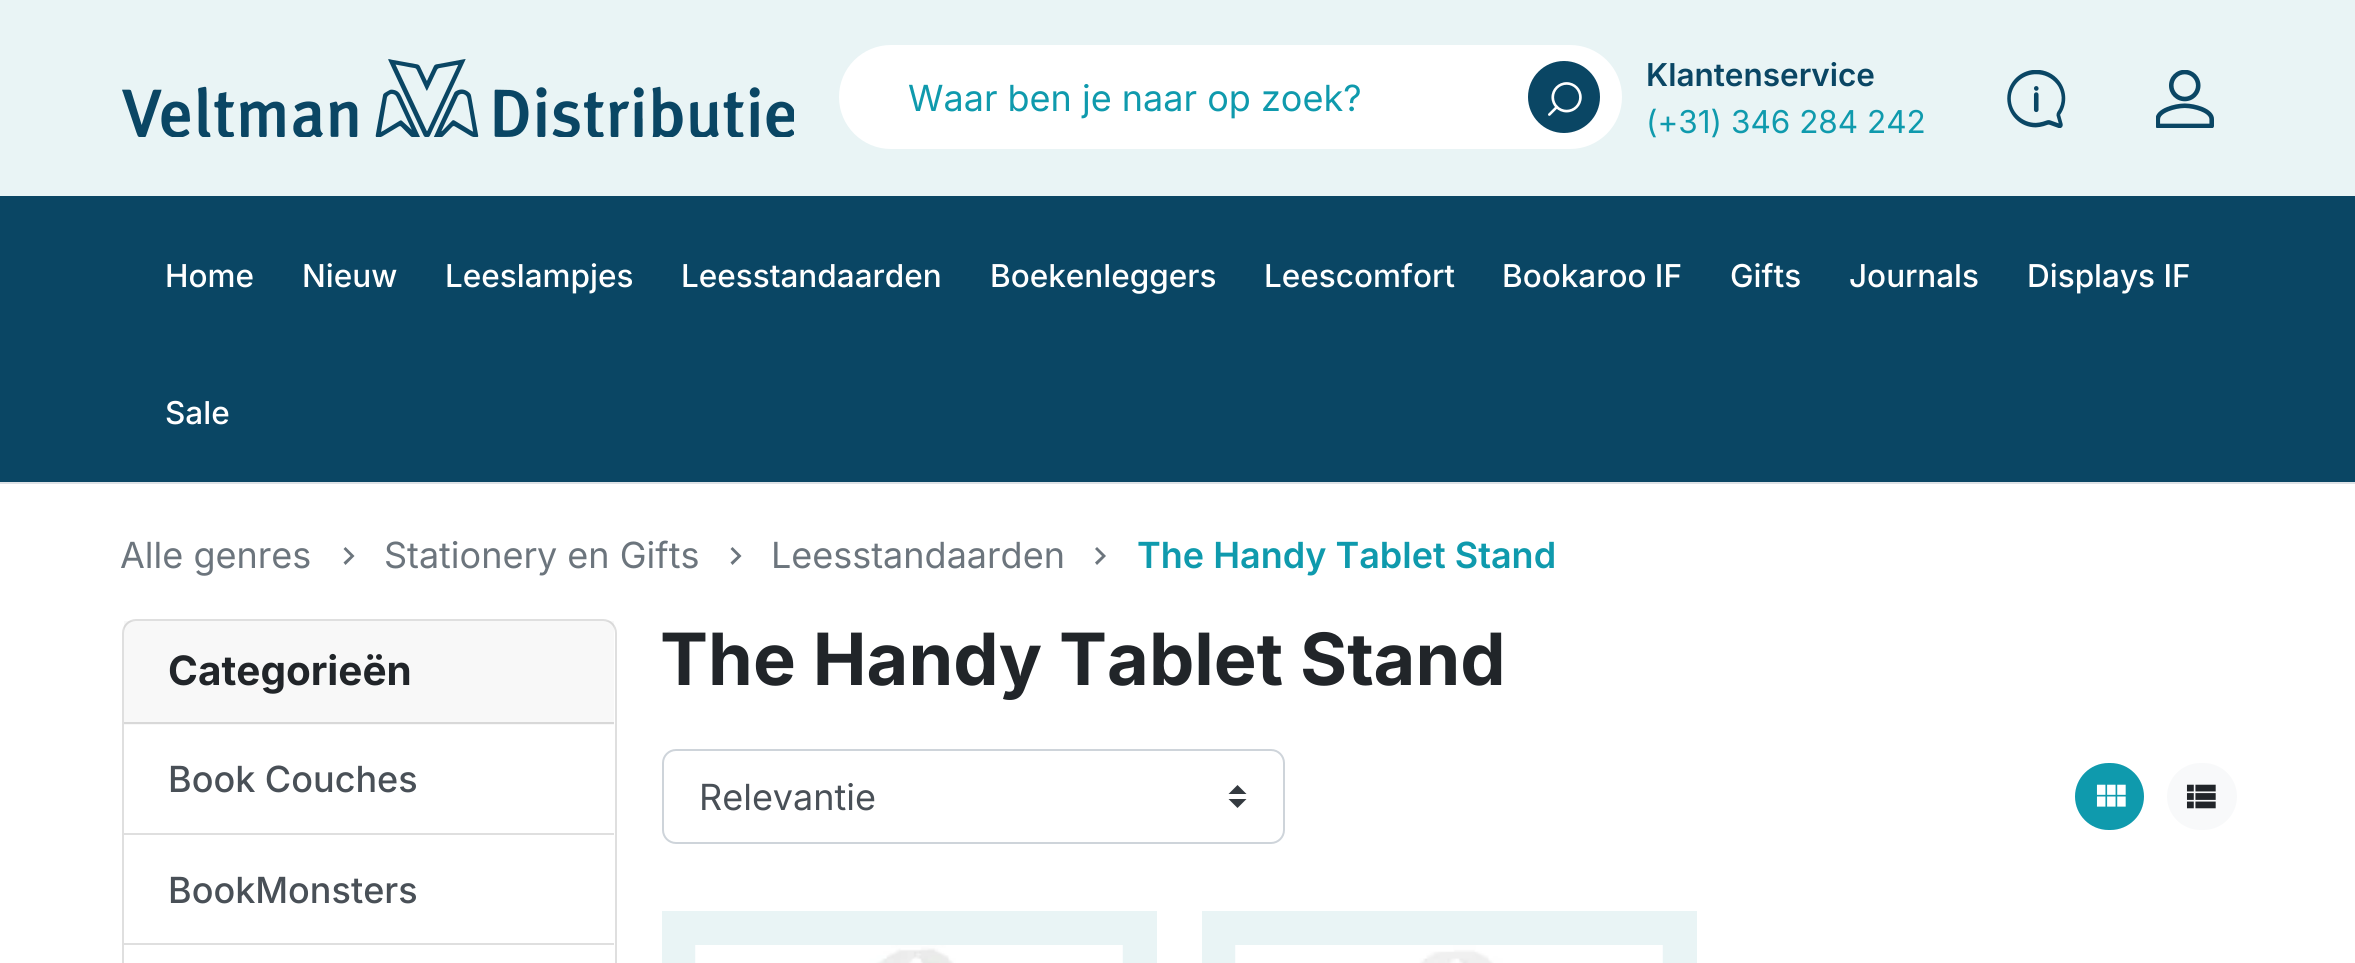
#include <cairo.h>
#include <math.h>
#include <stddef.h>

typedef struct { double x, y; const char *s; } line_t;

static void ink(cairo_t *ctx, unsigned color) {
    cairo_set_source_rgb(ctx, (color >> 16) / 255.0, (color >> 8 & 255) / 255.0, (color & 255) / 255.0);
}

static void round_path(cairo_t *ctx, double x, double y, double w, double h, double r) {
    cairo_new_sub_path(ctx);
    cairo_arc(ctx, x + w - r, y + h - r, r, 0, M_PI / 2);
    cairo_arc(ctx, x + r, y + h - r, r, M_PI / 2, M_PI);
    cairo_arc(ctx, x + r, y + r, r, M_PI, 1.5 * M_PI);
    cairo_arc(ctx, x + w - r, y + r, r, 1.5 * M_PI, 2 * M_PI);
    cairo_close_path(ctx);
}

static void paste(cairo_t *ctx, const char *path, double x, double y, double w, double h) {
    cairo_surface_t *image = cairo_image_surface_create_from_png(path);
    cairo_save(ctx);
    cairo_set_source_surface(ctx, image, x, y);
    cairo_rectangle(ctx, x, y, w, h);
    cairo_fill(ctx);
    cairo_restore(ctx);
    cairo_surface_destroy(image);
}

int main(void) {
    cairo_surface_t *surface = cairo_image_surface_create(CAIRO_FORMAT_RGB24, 2355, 963);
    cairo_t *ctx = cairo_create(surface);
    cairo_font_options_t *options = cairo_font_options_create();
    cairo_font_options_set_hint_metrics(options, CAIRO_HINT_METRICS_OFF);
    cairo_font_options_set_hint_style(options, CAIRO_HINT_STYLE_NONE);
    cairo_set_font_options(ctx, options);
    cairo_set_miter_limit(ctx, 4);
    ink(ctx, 0xFFFFFF);
    cairo_paint(ctx);
    ink(ctx, 0xDEE2E6);
    cairo_rectangle(ctx, 0, 482, 2355, 2);
    cairo_fill(ctx);
    ink(ctx, 0xE9F4F5);
    cairo_rectangle(ctx, 0, 0, 2355, 196);
    cairo_fill(ctx);
    paste(ctx, "media/1.png", 122, 59, 672, 78);
    ink(ctx, 0xFFFFFF);
    round_path(ctx, 839, 45, 783, 104, 52);
    cairo_fill(ctx);
    cairo_select_font_face(ctx, "Inter", CAIRO_FONT_SLANT_NORMAL, CAIRO_FONT_WEIGHT_NORMAL);
    cairo_set_font_size(ctx, 36);
    ink(ctx, 0x0F9AAD);
    cairo_move_to(ctx, 908, 111);
    cairo_show_text(ctx, "Waar ben je naar op zoek?");
    ink(ctx, 0x0A4664);
    cairo_new_path(ctx);
    cairo_arc(ctx, 1564, 97, 36, 0, 2 * M_PI);
    cairo_fill(ctx);
    paste(ctx, "media/2.png", 1548, 82, 34, 34);
    cairo_select_font_face(ctx, "Inter SemiBold", CAIRO_FONT_SLANT_NORMAL, CAIRO_FONT_WEIGHT_NORMAL);
    cairo_set_font_size(ctx, 31.5);
    cairo_move_to(ctx, 1646, 86);
    cairo_show_text(ctx, "Klantenservice");
    cairo_select_font_face(ctx, "Inter", CAIRO_FONT_SLANT_NORMAL, CAIRO_FONT_WEIGHT_NORMAL);
    ink(ctx, 0x0F9AAD);
    cairo_move_to(ctx, 1646, 133);
    cairo_show_text(ctx, "(+31) 346 284 242");
    paste(ctx, "media/3.png", 2007, 70, 59, 58);
    paste(ctx, "media/4.png", 2156, 70, 58, 58);
    ink(ctx, 0x0A4664);
    cairo_rectangle(ctx, 0, 196, 2355, 286);
    cairo_fill(ctx);
    cairo_select_font_face(ctx, "Inter Medium", CAIRO_FONT_SLANT_NORMAL, CAIRO_FONT_WEIGHT_NORMAL);
    ink(ctx, 0xFFFFFF);
    {
        static const line_t items[] = {
            {165, 287, "Home"},
            {302, 287, "Nieuw"},
            {445, 287, "Leeslampjes"},
            {681, 287, "Leesstandaarden"},
            {990, 287, "Boekenleggers"},
            {1264, 287, "Leescomfort"},
            {1502, 287, "Bookaroo IF"},
            {1730, 287, "Gifts"},
            {1849, 287, "Journals"},
            {2027, 287, "Displays IF"},
            {165, 424, "Sale"},
        };
        for (size_t i = 0; i < sizeof items / sizeof *items; i++) {
            cairo_move_to(ctx, items[i].x, items[i].y);
            cairo_show_text(ctx, items[i].s);
        }
    }
    cairo_select_font_face(ctx, "Inter", CAIRO_FONT_SLANT_NORMAL, CAIRO_FONT_WEIGHT_NORMAL);
    cairo_set_font_size(ctx, 36);
    ink(ctx, 0x6C757D);
    cairo_move_to(ctx, 120, 568);
    cairo_show_text(ctx, "Alle genres");
    cairo_new_path(ctx);
    cairo_move_to(ctx, 345.5, 547);
    cairo_line_to(ctx, 354.5, 556);
    cairo_line_to(ctx, 345.5, 565);
    cairo_line_to(ctx, 343.5, 562.5);
    cairo_line_to(ctx, 350.5, 556);
    cairo_line_to(ctx, 343.5, 549);
    cairo_close_path(ctx);
    cairo_fill(ctx);
    cairo_move_to(ctx, 384, 568);
    cairo_show_text(ctx, "Stationery en Gifts");
    cairo_new_path(ctx);
    cairo_move_to(ctx, 732.5, 547);
    cairo_line_to(ctx, 741.5, 556);
    cairo_line_to(ctx, 732.5, 565);
    cairo_line_to(ctx, 730.5, 562.5);
    cairo_line_to(ctx, 737.5, 556);
    cairo_line_to(ctx, 730.5, 549);
    cairo_close_path(ctx);
    cairo_fill(ctx);
    cairo_move_to(ctx, 771, 568);
    cairo_show_text(ctx, "Leesstandaarden");
    cairo_new_path(ctx);
    cairo_move_to(ctx, 1097, 547);
    cairo_line_to(ctx, 1106, 556);
    cairo_line_to(ctx, 1097, 565);
    cairo_line_to(ctx, 1095, 562.5);
    cairo_line_to(ctx, 1102, 556);
    cairo_line_to(ctx, 1095, 549);
    cairo_close_path(ctx);
    cairo_fill(ctx);
    cairo_select_font_face(ctx, "Inter SemiBold", CAIRO_FONT_SLANT_NORMAL, CAIRO_FONT_WEIGHT_NORMAL);
    ink(ctx, 0x0F9AAD);
    cairo_move_to(ctx, 1137, 568);
    cairo_show_text(ctx, "The Handy Tablet Stand");
    round_path(ctx, 123, 620, 493, 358, 13);
    ink(ctx, 0xDFDFDF);
    cairo_stroke(ctx);
    cairo_set_source_rgba(ctx, 0, 0, 0, 0.03);
    cairo_rectangle(ctx, 124, 621, 490, 104);
    cairo_fill(ctx);
    ink(ctx, 0xD8D8D8);
    cairo_rectangle(ctx, 124, 722, 490, 2);
    cairo_fill(ctx);
    cairo_select_font_face(ctx, "Inter", CAIRO_FONT_SLANT_NORMAL, CAIRO_FONT_WEIGHT_BOLD);
    cairo_set_font_size(ctx, 40.5);
    ink(ctx, 0x212529);
    cairo_move_to(ctx, 168, 685);
    cairo_show_text(ctx, "Categorieën");
    ink(ctx, 0xDFDFDF);
    cairo_rectangle(ctx, 124, 833, 490, 2);
    cairo_fill(ctx);
    cairo_select_font_face(ctx, "Inter Medium", CAIRO_FONT_SLANT_NORMAL, CAIRO_FONT_WEIGHT_NORMAL);
    cairo_set_font_size(ctx, 36);
    ink(ctx, 0x495057);
    cairo_move_to(ctx, 168, 792);
    cairo_show_text(ctx, "Book Couches");
    ink(ctx, 0xDFDFDF);
    cairo_rectangle(ctx, 124, 943, 490, 2);
    cairo_fill(ctx);
    ink(ctx, 0x495057);
    cairo_move_to(ctx, 168, 903);
    cairo_show_text(ctx, "BookMonsters");
    cairo_select_font_face(ctx, "Inter", CAIRO_FONT_SLANT_NORMAL, CAIRO_FONT_WEIGHT_BOLD);
    cairo_set_font_size(ctx, 72);
    ink(ctx, 0x212529);
    cairo_move_to(ctx, 660, 685);
    cairo_show_text(ctx, "The Handy Tablet Stand");
    ink(ctx, 0x343A40);
    cairo_new_path(ctx);
    cairo_move_to(ctx, 1237.5, 785);
    cairo_line_to(ctx, 1228.5, 794);
    cairo_line_to(ctx, 1246.5, 794);
    cairo_close_path(ctx);
    cairo_move_to(ctx, 1237.5, 808);
    cairo_line_to(ctx, 1228.5, 799);
    cairo_line_to(ctx, 1246.5, 799);
    cairo_close_path(ctx);
    cairo_fill(ctx);
    round_path(ctx, 663, 750, 621, 93, 13);
    ink(ctx, 0xCED4DA);
    cairo_stroke(ctx);
    cairo_select_font_face(ctx, "Inter", CAIRO_FONT_SLANT_NORMAL, CAIRO_FONT_WEIGHT_NORMAL);
    cairo_set_font_size(ctx, 36);
    ink(ctx, 0x495057);
    cairo_move_to(ctx, 699, 810);
    cairo_show_text(ctx, "Relevantie");
    ink(ctx, 0x0F9AAD);
    round_path(ctx, 2075, 763, 69, 67, 33.5);
    cairo_fill(ctx);
    paste(ctx, "media/5.png", 2096, 784, 30, 23);
    ink(ctx, 0xF8F9FA);
    round_path(ctx, 2167, 763, 70, 67, 33.5);
    cairo_fill(ctx);
    paste(ctx, "media/6.png", 2186, 784, 30, 25);
    ink(ctx, 0xE9F4F5);
    cairo_rectangle(ctx, 662, 911, 495, 52);
    cairo_fill(ctx);
    paste(ctx, "media/7.png", 695, 945, 428, 18);
    cairo_rectangle(ctx, 1202, 911, 495, 52);
    cairo_fill(ctx);
    paste(ctx, "media/8.png", 1235, 945, 428, 18);
    cairo_surface_write_to_png(surface, "image.png");
    cairo_font_options_destroy(options);
    cairo_destroy(ctx);
    cairo_surface_destroy(surface);
    return 0;
}
